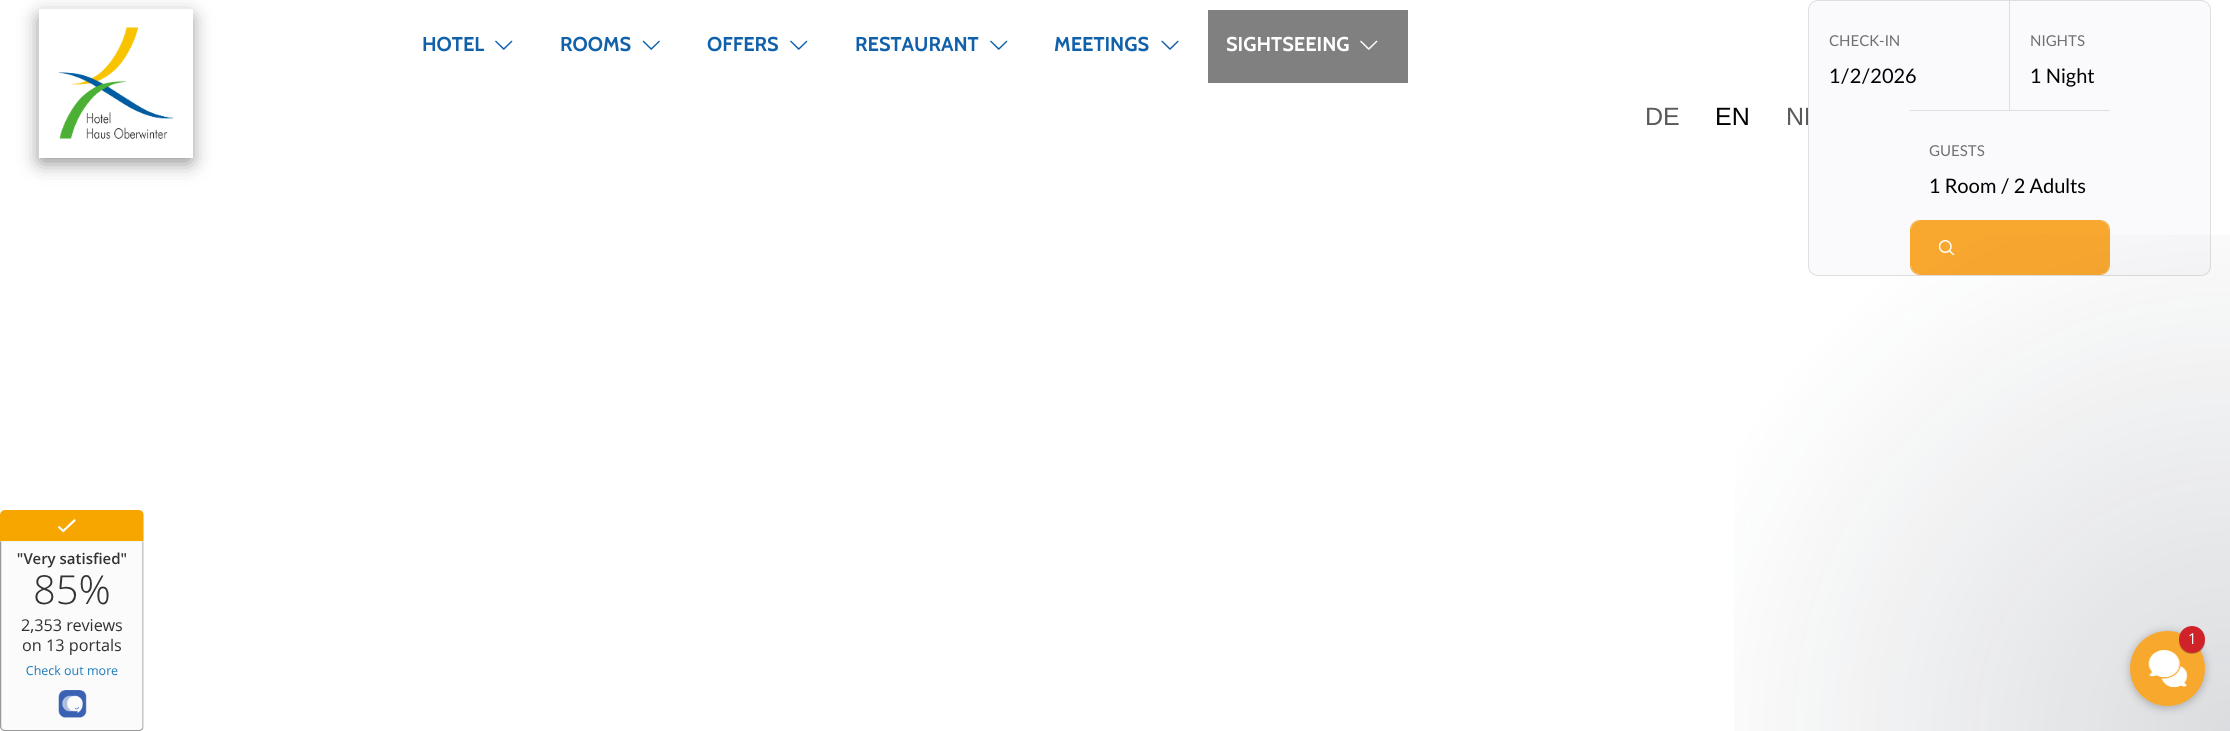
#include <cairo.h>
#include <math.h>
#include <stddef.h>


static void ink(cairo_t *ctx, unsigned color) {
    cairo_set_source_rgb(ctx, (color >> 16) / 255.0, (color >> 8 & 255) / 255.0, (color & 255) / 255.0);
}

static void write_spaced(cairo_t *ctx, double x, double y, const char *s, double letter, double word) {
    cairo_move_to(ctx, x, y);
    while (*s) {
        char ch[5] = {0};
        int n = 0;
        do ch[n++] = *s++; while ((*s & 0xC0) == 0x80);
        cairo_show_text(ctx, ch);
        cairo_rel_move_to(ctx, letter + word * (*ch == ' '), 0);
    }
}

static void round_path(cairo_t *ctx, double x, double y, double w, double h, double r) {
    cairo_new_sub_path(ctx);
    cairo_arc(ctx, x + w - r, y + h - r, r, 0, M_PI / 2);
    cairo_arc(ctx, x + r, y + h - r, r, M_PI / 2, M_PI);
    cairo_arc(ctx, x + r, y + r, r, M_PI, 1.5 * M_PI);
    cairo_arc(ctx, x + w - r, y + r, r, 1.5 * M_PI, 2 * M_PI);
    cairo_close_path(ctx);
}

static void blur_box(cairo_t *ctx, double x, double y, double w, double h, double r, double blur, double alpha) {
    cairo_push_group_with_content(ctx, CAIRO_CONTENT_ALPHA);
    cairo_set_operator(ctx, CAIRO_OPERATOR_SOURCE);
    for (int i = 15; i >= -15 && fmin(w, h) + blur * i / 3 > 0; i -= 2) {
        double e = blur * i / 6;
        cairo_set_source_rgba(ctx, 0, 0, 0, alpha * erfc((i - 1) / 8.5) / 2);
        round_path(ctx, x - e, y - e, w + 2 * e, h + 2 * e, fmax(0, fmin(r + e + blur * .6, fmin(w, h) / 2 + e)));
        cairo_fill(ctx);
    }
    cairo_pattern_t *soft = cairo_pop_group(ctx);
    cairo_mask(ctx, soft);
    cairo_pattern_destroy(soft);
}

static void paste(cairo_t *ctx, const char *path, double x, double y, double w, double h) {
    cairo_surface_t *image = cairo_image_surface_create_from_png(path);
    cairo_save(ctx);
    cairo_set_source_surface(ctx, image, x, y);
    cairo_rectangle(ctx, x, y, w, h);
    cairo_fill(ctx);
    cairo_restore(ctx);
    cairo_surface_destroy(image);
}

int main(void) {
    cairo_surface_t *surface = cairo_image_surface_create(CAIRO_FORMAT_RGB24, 2230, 731);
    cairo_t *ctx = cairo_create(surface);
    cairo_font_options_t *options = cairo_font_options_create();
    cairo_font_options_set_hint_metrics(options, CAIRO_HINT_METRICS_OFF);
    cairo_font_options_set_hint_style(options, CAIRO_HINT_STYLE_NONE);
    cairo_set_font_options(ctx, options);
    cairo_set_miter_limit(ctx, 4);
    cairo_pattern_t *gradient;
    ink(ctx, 0xFFFFFF);
    cairo_paint(ctx);
    ink(ctx, 0x000000);
    blur_box(ctx, 41, 18, 149, 143, 0, 10.5, 0.5);
    ink(ctx, 0xFFFFFF);
    cairo_rectangle(ctx, 39, 9, 154, 149);
    cairo_fill(ctx);
    paste(ctx, "media/1.png", 58, 27, 116, 112);
    cairo_select_font_face(ctx, "Cabin", CAIRO_FONT_SLANT_NORMAL, CAIRO_FONT_WEIGHT_BOLD);
    cairo_set_font_size(ctx, 20);
    ink(ctx, 0x1161AA);
    cairo_move_to(ctx, 422, 51);
    cairo_show_text(ctx, "HOTEL");
    paste(ctx, "media/2.png", 495, 40, 18, 10);
    cairo_move_to(ctx, 560, 51);
    cairo_show_text(ctx, "ROOMS");
    paste(ctx, "media/3.png", 642, 40, 18, 10);
    cairo_move_to(ctx, 707, 51);
    cairo_show_text(ctx, "OFFERS");
    paste(ctx, "media/2.png", 790, 40, 18, 10);
    cairo_move_to(ctx, 855, 51);
    cairo_show_text(ctx, "RESTAURANT");
    paste(ctx, "media/2.png", 990, 40, 18, 10);
    cairo_move_to(ctx, 1054, 51);
    cairo_show_text(ctx, "MEETINGS");
    paste(ctx, "media/4.png", 1161, 40, 18, 10);
    ink(ctx, 0x808080);
    cairo_rectangle(ctx, 1208, 10, 200, 73);
    cairo_fill(ctx);
    ink(ctx, 0xFFFFFF);
    cairo_move_to(ctx, 1226, 51);
    cairo_show_text(ctx, "SIGHTSEEING");
    paste(ctx, "media/5.png", 1360, 40, 18, 10);
    cairo_select_font_face(ctx, "Liberation Sans", CAIRO_FONT_SLANT_NORMAL, CAIRO_FONT_WEIGHT_NORMAL);
    cairo_set_font_size(ctx, 25);
    ink(ctx, 0x595959);
    cairo_move_to(ctx, 1786, 125);
    cairo_show_text(ctx, "NL");
    ink(ctx, 0xFAFAFC);
    round_path(ctx, 1808.5, 0.5, 402, 275, 9.5);
    cairo_fill_preserve(ctx);
    ink(ctx, 0xDEDEDE);
    cairo_set_line_width(ctx, 1);
    cairo_stroke(ctx);
    cairo_select_font_face(ctx, "Lato", CAIRO_FONT_SLANT_NORMAL, CAIRO_FONT_WEIGHT_NORMAL);
    cairo_set_font_size(ctx, 15);
    ink(ctx, 0x6E7072);
    cairo_move_to(ctx, 1829, 46);
    cairo_show_text(ctx, "CHECK-IN");
    cairo_set_font_size(ctx, 20);
    ink(ctx, 0x000000);
    cairo_move_to(ctx, 1829, 83);
    cairo_show_text(ctx, "1/2/2026");
    ink(ctx, 0xDEDEDE);
    cairo_rectangle(ctx, 2009, 1, 1, 109);
    cairo_fill(ctx);
    cairo_set_font_size(ctx, 15);
    ink(ctx, 0x6E7072);
    cairo_move_to(ctx, 2030, 46);
    cairo_show_text(ctx, "NIGHTS");
    cairo_set_font_size(ctx, 20);
    ink(ctx, 0x000000);
    write_spaced(ctx, 2030, 83, "1 Night", 0, -1);
    ink(ctx, 0xDEDEDE);
    cairo_rectangle(ctx, 1910, 110, 200, 1);
    cairo_fill(ctx);
    cairo_set_font_size(ctx, 15);
    ink(ctx, 0x6E7072);
    cairo_move_to(ctx, 1929, 156);
    cairo_show_text(ctx, "GUESTS");
    cairo_set_font_size(ctx, 20);
    ink(ctx, 0x000000);
    write_spaced(ctx, 1929, 193, "1 Room / 2 Adults", 0, -1);
    round_path(ctx, 1910.5, 220.5, 199, 54, 9.5);
    ink(ctx, 0xF9A82F);
    cairo_stroke(ctx);
    round_path(ctx, 1911, 221, 198, 53, 9);
    cairo_fill(ctx);
    paste(ctx, "media/6.png", 1939, 240, 16, 15);
    cairo_select_font_face(ctx, "Liberation Sans", CAIRO_FONT_SLANT_NORMAL, CAIRO_FONT_WEIGHT_NORMAL);
    cairo_set_font_size(ctx, 25);
    ink(ctx, 0x595959);
    cairo_move_to(ctx, 1645, 125);
    cairo_show_text(ctx, "DE");
    ink(ctx, 0x000000);
    cairo_move_to(ctx, 1715, 125);
    cairo_show_text(ctx, "EN");
    paste(ctx, "media/7.png", 0, 510, 144, 221);
    gradient = cairo_pattern_create_radial(2230, 731, 0, 2230, 731, 795);
    cairo_pattern_add_color_stop_rgba(gradient, 0, 0.114, 0.153, 0.212, 0.16);
    cairo_pattern_add_color_stop_rgba(gradient, 0.72, 0.114, 0.153, 0.212, 0);
    cairo_set_source(ctx, gradient);
    cairo_pattern_destroy(gradient);
    cairo_rectangle(ctx, 1734, 235, 496, 496);
    cairo_fill(ctx);
    ink(ctx, 0x000000);
    blur_box(ctx, 2129, 631, 77, 78, 38.5, 4, 0.2);
    ink(ctx, 0xF9A82E);
    cairo_arc(ctx, 2167.5, 668.5, 37.5, 0, 2 * M_PI);
    cairo_fill(ctx);
    paste(ctx, "media/8.png", 2148, 650, 40, 38);
    cairo_set_source_rgba(ctx, 0, 0, 0, 0.3);
    cairo_new_path(ctx);
    cairo_move_to(ctx, 2205, 640);
    cairo_curve_to(ctx, 2204, 655, 2182.5, 657, 2179, 642);
    cairo_curve_to(ctx, 2180.5, 659, 2206, 657, 2205, 640);
    cairo_close_path(ctx);
    cairo_fill(ctx);
    ink(ctx, 0xCF2329);
    round_path(ctx, 2179, 626, 26, 27, 13);
    cairo_fill(ctx);
    cairo_select_font_face(ctx, "Open Sans", CAIRO_FONT_SLANT_NORMAL, CAIRO_FONT_WEIGHT_NORMAL);
    cairo_set_font_size(ctx, 15);
    ink(ctx, 0xFFFFFF);
    cairo_move_to(ctx, 2188, 644);
    cairo_show_text(ctx, "1");
    cairo_surface_write_to_png(surface, "image.png");
    cairo_font_options_destroy(options);
    cairo_destroy(ctx);
    cairo_surface_destroy(surface);
    return 0;
}
